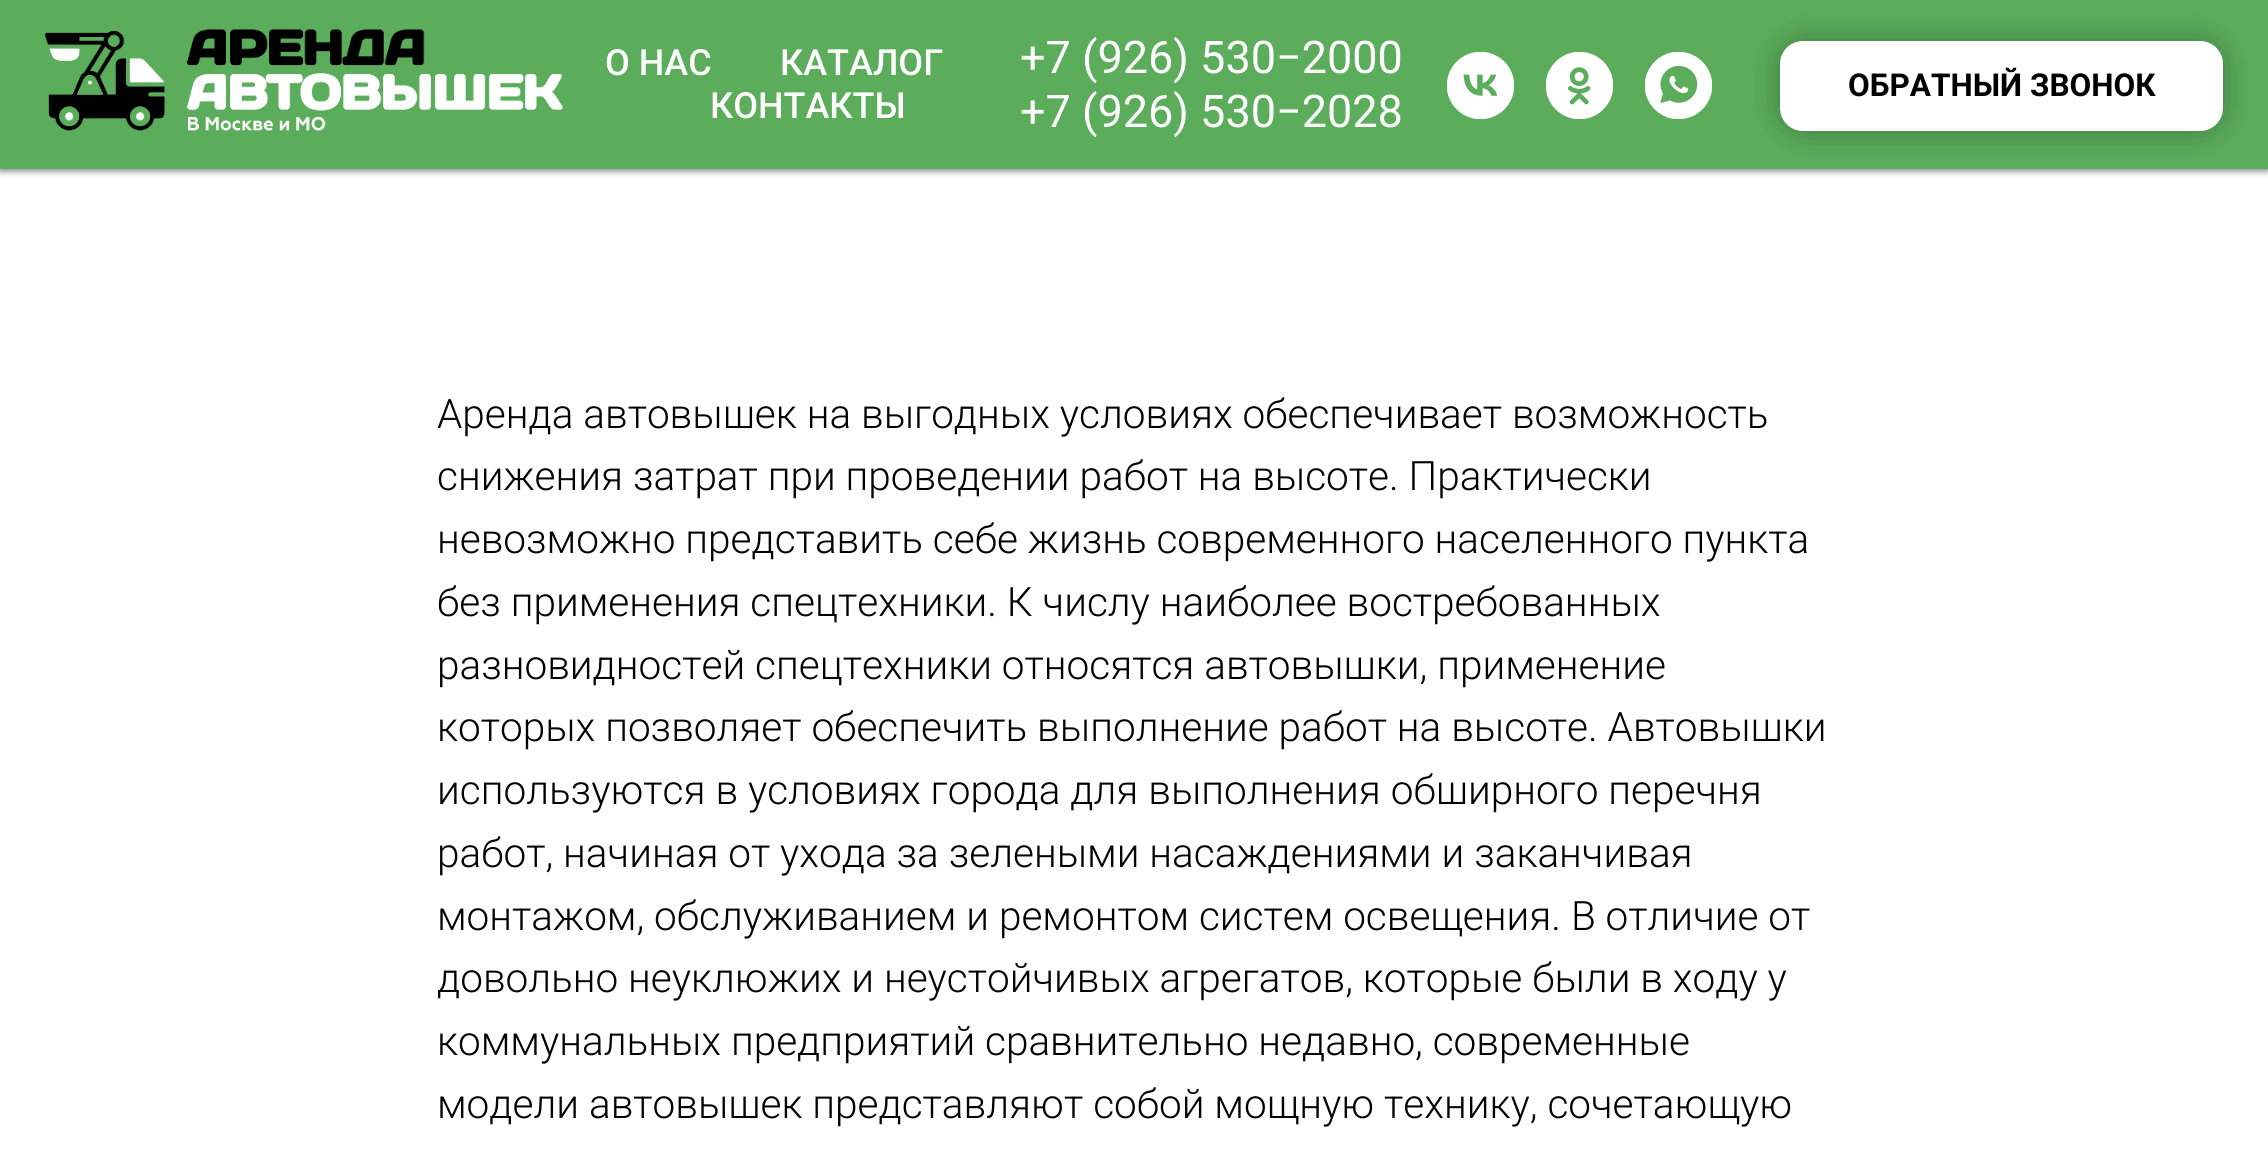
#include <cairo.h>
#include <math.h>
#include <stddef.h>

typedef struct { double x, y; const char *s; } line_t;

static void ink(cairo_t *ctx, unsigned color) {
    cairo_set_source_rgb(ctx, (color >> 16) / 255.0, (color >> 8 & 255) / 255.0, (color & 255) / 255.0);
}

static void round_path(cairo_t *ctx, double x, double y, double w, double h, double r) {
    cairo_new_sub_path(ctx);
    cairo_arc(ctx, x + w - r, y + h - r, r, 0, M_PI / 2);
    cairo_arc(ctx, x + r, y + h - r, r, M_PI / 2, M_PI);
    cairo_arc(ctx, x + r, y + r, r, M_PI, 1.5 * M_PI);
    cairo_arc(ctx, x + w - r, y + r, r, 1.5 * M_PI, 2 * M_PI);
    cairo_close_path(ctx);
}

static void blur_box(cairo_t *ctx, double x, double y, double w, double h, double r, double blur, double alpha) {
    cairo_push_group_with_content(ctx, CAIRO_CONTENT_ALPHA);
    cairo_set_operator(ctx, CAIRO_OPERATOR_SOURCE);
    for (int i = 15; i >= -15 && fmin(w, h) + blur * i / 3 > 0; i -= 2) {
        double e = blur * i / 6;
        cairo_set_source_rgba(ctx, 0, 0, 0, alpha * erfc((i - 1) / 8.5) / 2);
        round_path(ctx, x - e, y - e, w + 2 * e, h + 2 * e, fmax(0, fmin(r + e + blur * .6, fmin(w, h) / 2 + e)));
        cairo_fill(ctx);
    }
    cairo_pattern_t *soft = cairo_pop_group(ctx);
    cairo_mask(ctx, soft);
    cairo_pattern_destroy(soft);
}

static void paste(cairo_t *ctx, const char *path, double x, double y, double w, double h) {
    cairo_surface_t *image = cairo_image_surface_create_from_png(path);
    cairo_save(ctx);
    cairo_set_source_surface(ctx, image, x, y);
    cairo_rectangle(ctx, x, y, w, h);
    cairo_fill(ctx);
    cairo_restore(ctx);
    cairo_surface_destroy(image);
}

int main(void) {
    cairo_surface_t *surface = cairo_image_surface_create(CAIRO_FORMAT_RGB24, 2268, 1161);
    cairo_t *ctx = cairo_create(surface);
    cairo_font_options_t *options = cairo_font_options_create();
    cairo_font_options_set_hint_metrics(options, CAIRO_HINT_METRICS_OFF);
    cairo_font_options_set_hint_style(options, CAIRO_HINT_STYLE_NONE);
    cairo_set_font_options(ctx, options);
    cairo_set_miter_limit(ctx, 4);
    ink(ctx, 0xFFFFFF);
    cairo_paint(ctx);
    cairo_save(ctx);
    cairo_set_fill_rule(ctx, CAIRO_FILL_RULE_EVEN_ODD);
    cairo_new_path(ctx);
    cairo_move_to(ctx, 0, 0);
    cairo_line_to(ctx, 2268, 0);
    cairo_line_to(ctx, 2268, 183);
    cairo_line_to(ctx, 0, 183);
    cairo_close_path(ctx);
    cairo_move_to(ctx, 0, 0);
    cairo_line_to(ctx, 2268, 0);
    cairo_line_to(ctx, 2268, 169);
    cairo_line_to(ctx, 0, 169);
    cairo_close_path(ctx);
    cairo_clip(ctx);
    ink(ctx, 0x000000);
    blur_box(ctx, 0, 2, 2268, 169, 0, 3.5, 0.5);
    cairo_restore(ctx);
    cairo_set_source_rgba(ctx, 0.2, 0.6, 0.2, 0.8);
    cairo_rectangle(ctx, 0, 0, 2268, 169);
    cairo_fill(ctx);
    paste(ctx, "media/1.png", 45, 29, 518, 102);
    cairo_select_font_face(ctx, "Roboto Medium", CAIRO_FONT_SLANT_NORMAL, CAIRO_FONT_WEIGHT_NORMAL);
    cairo_set_font_size(ctx, 36);
    ink(ctx, 0xFFFFFF);
    {
        static const line_t items[] = {
            {605, 75, "О НАС"},
            {780, 75, "КАТАЛОГ"},
            {710, 118, "КОНТАКТЫ"},
        };
        for (size_t i = 0; i < sizeof items / sizeof *items; i++) {
            cairo_move_to(ctx, items[i].x, items[i].y);
            cairo_show_text(ctx, items[i].s);
        }
    }
    cairo_select_font_face(ctx, "Roboto", CAIRO_FONT_SLANT_NORMAL, CAIRO_FONT_WEIGHT_NORMAL);
    cairo_set_font_size(ctx, 45);
    cairo_move_to(ctx, 1020, 73);
    cairo_show_text(ctx, "+7 (926) 530−2000");
    cairo_move_to(ctx, 1020, 127);
    cairo_show_text(ctx, "+7 (926) 530−2028");
    paste(ctx, "media/2.png", 1447, 52, 67, 67);
    paste(ctx, "media/3.png", 1546, 52, 67, 67);
    paste(ctx, "media/4.png", 1645, 52, 67, 67);
    ink(ctx, 0x000000);
    blur_box(ctx, 1780, 41, 443, 90, 23, 17, 0.3);
    ink(ctx, 0xFFFFFF);
    round_path(ctx, 1780, 41, 443, 90, 23);
    cairo_fill(ctx);
    cairo_select_font_face(ctx, "Roboto", CAIRO_FONT_SLANT_NORMAL, CAIRO_FONT_WEIGHT_BOLD);
    cairo_set_font_size(ctx, 31.5);
    ink(ctx, 0x000000);
    cairo_move_to(ctx, 1848, 96);
    cairo_show_text(ctx, "ОБРАТНЫЙ ЗВОНОК");
    cairo_select_font_face(ctx, "Roboto Light", CAIRO_FONT_SLANT_NORMAL, CAIRO_FONT_WEIGHT_NORMAL);
    cairo_set_font_size(ctx, 40.5);
    {
        static const line_t items[] = {
            {437, 428, "Аренда автовышек на выгодных условиях обеспечивает возможность"},
            {437, 490, "снижения затрат при проведении работ на высоте. Практически"},
            {437, 553, "невозможно представить себе жизнь современного населенного пункта"},
            {437, 616, "без применения спецтехники. К числу наиболее востребованных"},
            {437, 679, "разновидностей спецтехники относятся автовышки, применение"},
            {437, 741, "которых позволяет обеспечить выполнение работ на высоте. Автовышки"},
            {437, 804, "используются в условиях города для выполнения обширного перечня"},
            {437, 867, "работ, начиная от ухода за зелеными насаждениями и заканчивая"},
            {437, 930, "монтажом, обслуживанием и ремонтом систем освещения. В отличие от"},
            {437, 992, "довольно неуклюжих и неустойчивых агрегатов, которые были в ходу у"},
            {437, 1055, "коммунальных предприятий сравнительно недавно, современные"},
            {437, 1118, "модели автовышек представляют собой мощную технику, сочетающую"},
        };
        for (size_t i = 0; i < sizeof items / sizeof *items; i++) {
            cairo_move_to(ctx, items[i].x, items[i].y);
            cairo_show_text(ctx, items[i].s);
        }
    }
    cairo_surface_write_to_png(surface, "image.png");
    cairo_font_options_destroy(options);
    cairo_destroy(ctx);
    cairo_surface_destroy(surface);
    return 0;
}
